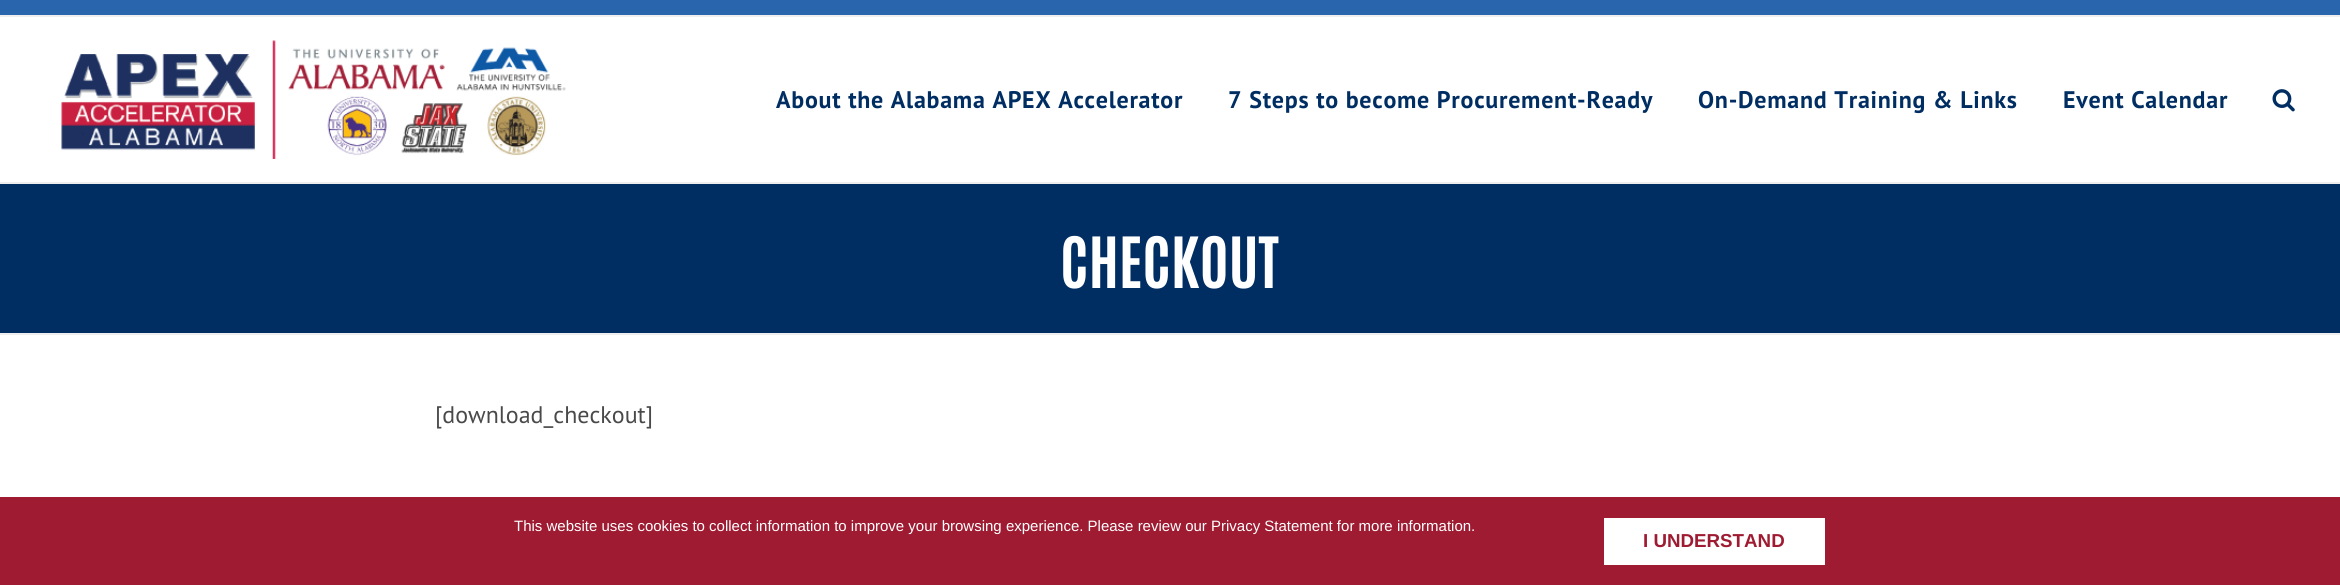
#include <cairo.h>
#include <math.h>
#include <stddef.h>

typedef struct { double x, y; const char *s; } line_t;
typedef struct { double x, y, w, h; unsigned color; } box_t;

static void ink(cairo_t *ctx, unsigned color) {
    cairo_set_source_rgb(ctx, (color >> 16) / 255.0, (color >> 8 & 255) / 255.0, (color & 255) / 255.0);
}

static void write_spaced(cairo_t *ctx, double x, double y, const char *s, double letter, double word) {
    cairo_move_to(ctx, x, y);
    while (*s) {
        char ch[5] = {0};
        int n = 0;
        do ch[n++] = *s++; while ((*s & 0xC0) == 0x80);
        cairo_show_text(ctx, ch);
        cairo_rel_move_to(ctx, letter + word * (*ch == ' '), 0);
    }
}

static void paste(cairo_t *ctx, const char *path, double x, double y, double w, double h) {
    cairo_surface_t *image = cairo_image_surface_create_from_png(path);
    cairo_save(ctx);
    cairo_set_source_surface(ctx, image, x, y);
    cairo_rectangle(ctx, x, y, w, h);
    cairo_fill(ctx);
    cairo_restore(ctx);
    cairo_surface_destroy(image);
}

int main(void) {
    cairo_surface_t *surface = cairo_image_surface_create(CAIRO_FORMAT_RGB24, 2340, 585);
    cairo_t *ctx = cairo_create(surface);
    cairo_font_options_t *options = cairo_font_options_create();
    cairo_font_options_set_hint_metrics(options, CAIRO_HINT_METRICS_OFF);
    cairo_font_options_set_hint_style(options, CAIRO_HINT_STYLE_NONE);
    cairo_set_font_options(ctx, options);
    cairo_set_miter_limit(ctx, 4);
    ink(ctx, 0xFFFFFF);
    cairo_paint(ctx);
    ink(ctx, 0x2965AD);
    cairo_rectangle(ctx, 0, 0, 2340, 15);
    cairo_fill(ctx);
    ink(ctx, 0xEEEEEE);
    cairo_rectangle(ctx, 0, 15, 2340, 2);
    cairo_fill(ctx);
    paste(ctx, "media/1.png", 61, 40, 505, 119);
    cairo_select_font_face(ctx, "PT Sans", CAIRO_FONT_SLANT_NORMAL, CAIRO_FONT_WEIGHT_BOLD);
    cairo_set_font_size(ctx, 24);
    ink(ctx, 0x002E62);
    {
        static const line_t items[] = {
            {776, 108, "About the Alabama APEX Accelerator"},
            {1228, 108, "7 Steps to become Procurement-Ready"},
            {1698, 108, "On-Demand Training & Links"},
            {2063, 108, "Event Calendar"},
        };
        for (size_t i = 0; i < sizeof items / sizeof *items; i++) {
            write_spaced(ctx, items[i].x, items[i].y, items[i].s, 0.75, 0);
        }
    }
    paste(ctx, "media/2.png", 2272, 89, 23, 23);
    {
        static const box_t items[] = {
            {0, 184, 2340, 149, 0x002E62},
            {0, 182, 2340, 2, 0xEEEEEE},
            {0, 333, 2340, 2, 0xEEEEEE},
        };
        for (size_t i = 0; i < sizeof items / sizeof *items; i++) {
            ink(ctx, items[i].color);
            cairo_rectangle(ctx, items[i].x, items[i].y, items[i].w, items[i].h);
            cairo_fill(ctx);
        }
    }
    cairo_select_font_face(ctx, "Antonio", CAIRO_FONT_SLANT_NORMAL, CAIRO_FONT_WEIGHT_BOLD);
    cairo_set_font_size(ctx, 60);
    ink(ctx, 0xFFFFFF);
    cairo_move_to(ctx, 1060, 288);
    cairo_show_text(ctx, "CHECKOUT");
    cairo_select_font_face(ctx, "PT Sans", CAIRO_FONT_SLANT_NORMAL, CAIRO_FONT_WEIGHT_NORMAL);
    cairo_set_font_size(ctx, 24);
    ink(ctx, 0x494949);
    cairo_move_to(ctx, 435, 423);
    cairo_show_text(ctx, "[download_checkout]");
    ink(ctx, 0x9E1B32);
    cairo_rectangle(ctx, 0, 497, 2340, 88);
    cairo_fill(ctx);
    cairo_select_font_face(ctx, "Liberation Sans", CAIRO_FONT_SLANT_NORMAL, CAIRO_FONT_WEIGHT_NORMAL);
    cairo_set_font_size(ctx, 15);
    ink(ctx, 0xFFFFFF);
    cairo_move_to(ctx, 514, 531);
    cairo_show_text(ctx, "This website uses cookies to collect information to improve your browsing experience. Please review our Privacy Statement for more information.");
    cairo_rectangle(ctx, 1604, 518, 221, 47);
    cairo_fill(ctx);
    cairo_select_font_face(ctx, "Liberation Sans", CAIRO_FONT_SLANT_NORMAL, CAIRO_FONT_WEIGHT_BOLD);
    cairo_set_font_size(ctx, 18.75);
    ink(ctx, 0x9E1B32);
    cairo_move_to(ctx, 1643, 547);
    cairo_show_text(ctx, "I UNDERSTAND");
    cairo_surface_write_to_png(surface, "image.png");
    cairo_font_options_destroy(options);
    cairo_destroy(ctx);
    cairo_surface_destroy(surface);
    return 0;
}
